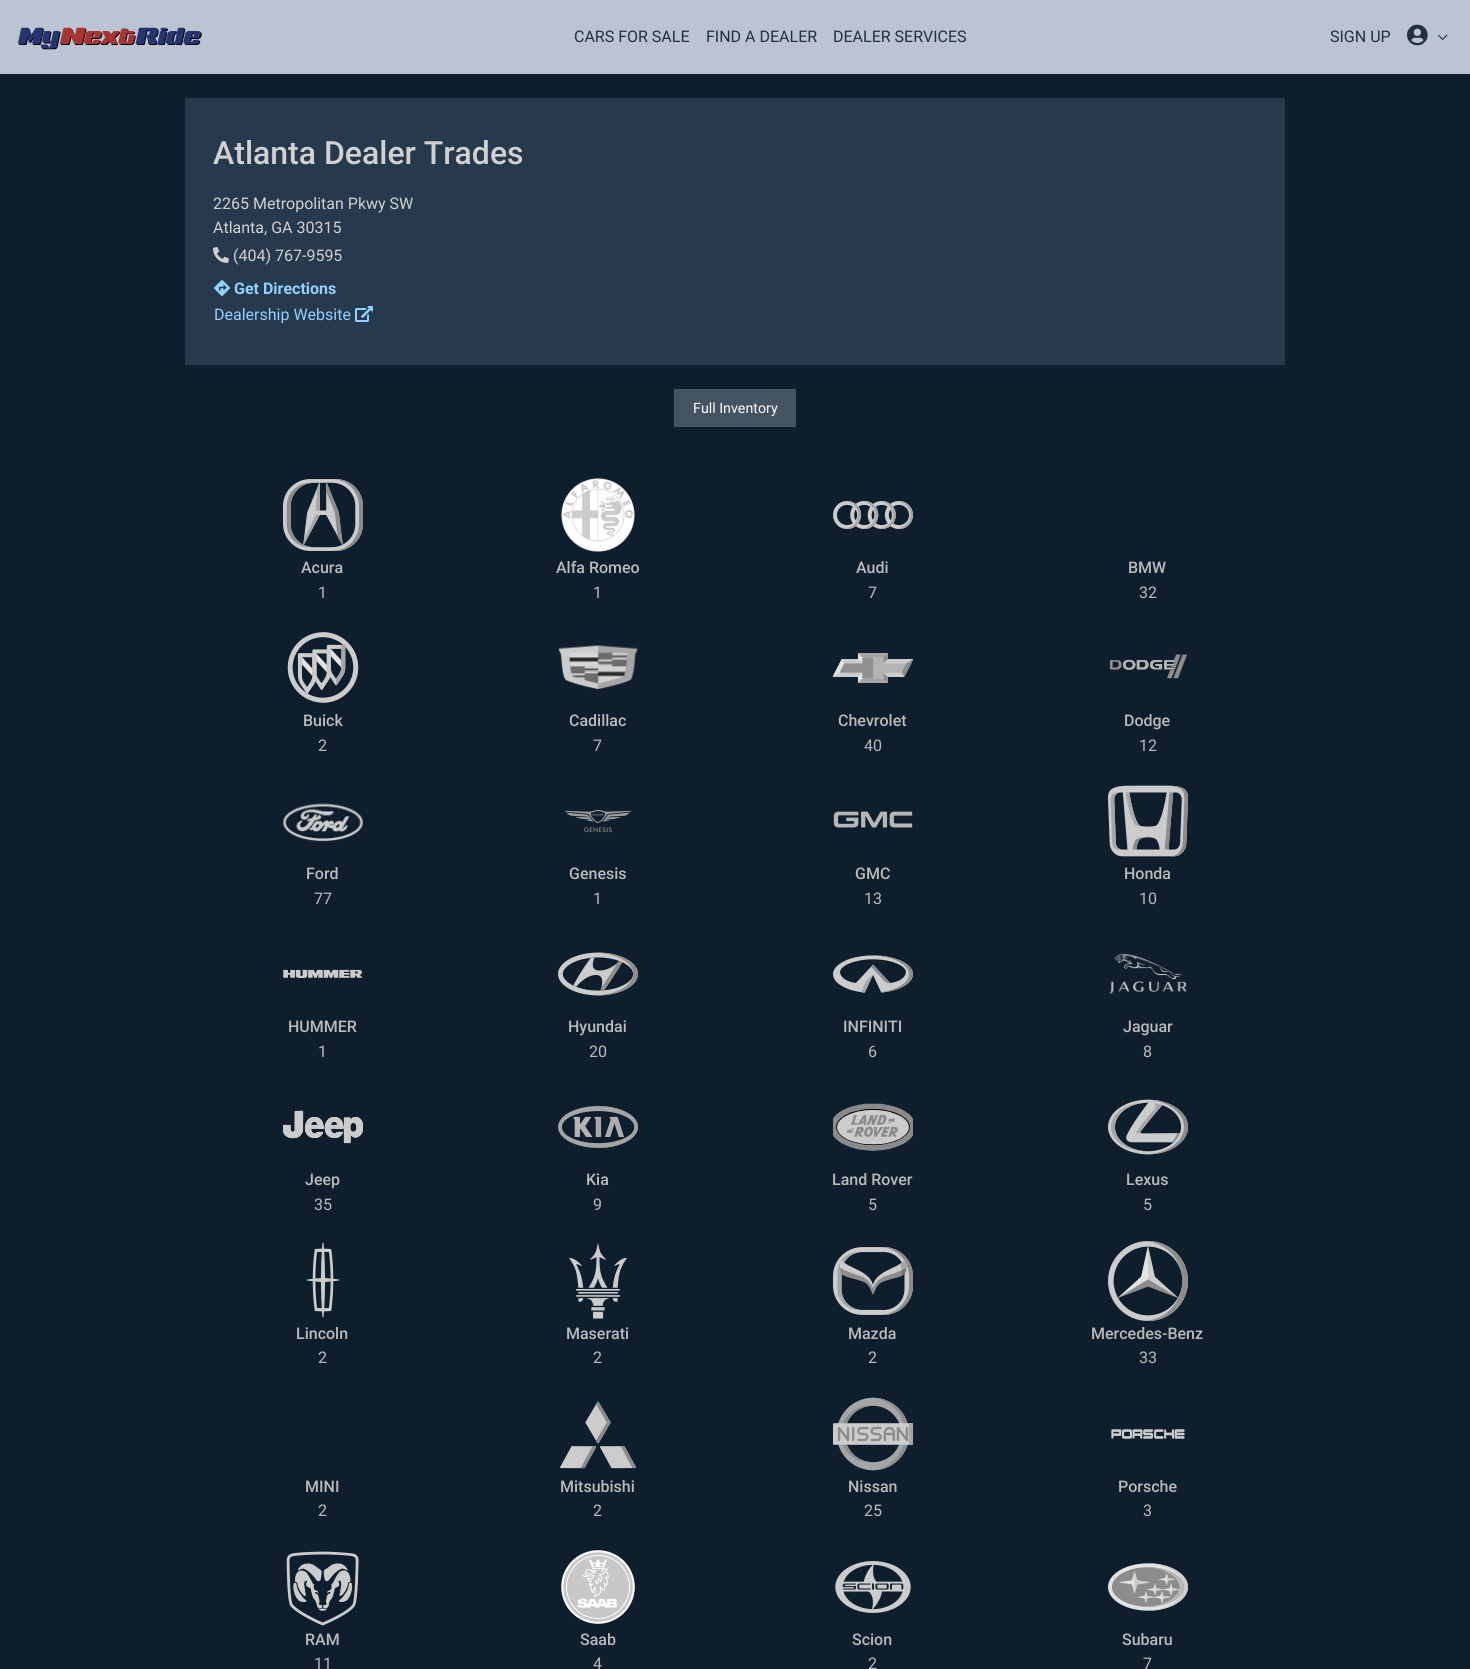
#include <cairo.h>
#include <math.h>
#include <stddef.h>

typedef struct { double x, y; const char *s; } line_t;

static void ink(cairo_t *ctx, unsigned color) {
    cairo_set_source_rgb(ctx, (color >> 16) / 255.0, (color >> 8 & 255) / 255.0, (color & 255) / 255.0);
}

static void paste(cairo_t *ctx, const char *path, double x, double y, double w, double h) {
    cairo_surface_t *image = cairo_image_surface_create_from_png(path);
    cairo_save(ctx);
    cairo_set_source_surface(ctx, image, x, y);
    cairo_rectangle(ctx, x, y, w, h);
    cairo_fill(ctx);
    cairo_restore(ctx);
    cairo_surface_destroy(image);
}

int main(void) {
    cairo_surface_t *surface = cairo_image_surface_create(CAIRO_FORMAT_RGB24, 1470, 1669);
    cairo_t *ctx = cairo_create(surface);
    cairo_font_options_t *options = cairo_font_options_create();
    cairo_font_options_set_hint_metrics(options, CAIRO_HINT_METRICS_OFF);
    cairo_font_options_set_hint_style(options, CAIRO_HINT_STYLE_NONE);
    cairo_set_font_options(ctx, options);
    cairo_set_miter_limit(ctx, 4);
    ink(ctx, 0x0E1E2D);
    cairo_paint(ctx);
    ink(ctx, 0xBBC4D3);
    cairo_rectangle(ctx, 0, 0, 1470, 74);
    cairo_fill(ctx);
    paste(ctx, "media/1.png", 18, 27, 184, 23);
    cairo_select_font_face(ctx, "Roboto", CAIRO_FONT_SLANT_NORMAL, CAIRO_FONT_WEIGHT_NORMAL);
    cairo_set_font_size(ctx, 16);
    ink(ctx, 0x222F40);
    {
        static const line_t items[] = {
            {574, 42, "CARS FOR SALE"},
            {706, 42, "FIND A DEALER"},
            {833, 42, "DEALER SERVICES"},
            {1330, 42, "SIGN UP"},
        };
        for (size_t i = 0; i < sizeof items / sizeof *items; i++) {
            cairo_move_to(ctx, items[i].x, items[i].y);
            cairo_show_text(ctx, items[i].s);
        }
    }
    paste(ctx, "media/2.png", 1407, 24, 21, 22);
    cairo_new_path(ctx);
    cairo_move_to(ctx, 1446.5, 34.5);
    cairo_line_to(ctx, 1447.5, 35.5);
    cairo_line_to(ctx, 1442.5, 40);
    cairo_line_to(ctx, 1442, 39.5);
    cairo_close_path(ctx);
    cairo_fill(ctx);
    cairo_new_path(ctx);
    cairo_move_to(ctx, 1438.5, 34.5);
    cairo_line_to(ctx, 1443.5, 39.5);
    cairo_line_to(ctx, 1442.5, 40);
    cairo_line_to(ctx, 1438, 35.5);
    cairo_close_path(ctx);
    cairo_fill(ctx);
    ink(ctx, 0x27394D);
    cairo_rectangle(ctx, 185, 98, 1100, 267);
    cairo_fill(ctx);
    cairo_select_font_face(ctx, "Roboto Medium", CAIRO_FONT_SLANT_NORMAL, CAIRO_FONT_WEIGHT_NORMAL);
    cairo_set_font_size(ctx, 32);
    ink(ctx, 0xD1D1D1);
    cairo_move_to(ctx, 213, 164);
    cairo_show_text(ctx, "Atlanta Dealer Trades");
    cairo_select_font_face(ctx, "Roboto", CAIRO_FONT_SLANT_NORMAL, CAIRO_FONT_WEIGHT_NORMAL);
    cairo_set_font_size(ctx, 16);
    cairo_move_to(ctx, 213, 209);
    cairo_show_text(ctx, "2265 Metropolitan Pkwy SW");
    cairo_move_to(ctx, 213, 233);
    cairo_show_text(ctx, "Atlanta, GA 30315");
    paste(ctx, "media/3.png", 213, 247, 16, 16);
    cairo_move_to(ctx, 233, 261);
    cairo_show_text(ctx, "(404) 767-9595");
    paste(ctx, "media/4.png", 214, 280, 16, 16);
    cairo_select_font_face(ctx, "Roboto", CAIRO_FONT_SLANT_NORMAL, CAIRO_FONT_WEIGHT_BOLD);
    ink(ctx, 0x93D1FF);
    cairo_move_to(ctx, 234, 294);
    cairo_show_text(ctx, "Get Directions");
    cairo_select_font_face(ctx, "Roboto", CAIRO_FONT_SLANT_NORMAL, CAIRO_FONT_WEIGHT_NORMAL);
    cairo_move_to(ctx, 214, 320);
    cairo_show_text(ctx, "Dealership Website");
    paste(ctx, "media/5.png", 355, 306, 18, 16);
    ink(ctx, 0x435362);
    cairo_rectangle(ctx, 674, 389, 122, 38);
    cairo_fill(ctx);
    cairo_set_font_size(ctx, 14.25);
    ink(ctx, 0xFFFFFF);
    cairo_move_to(ctx, 693, 413);
    cairo_show_text(ctx, "Full Inventory");
    paste(ctx, "media/6.png", 283, 479, 80, 72);
    cairo_select_font_face(ctx, "Roboto Medium", CAIRO_FONT_SLANT_NORMAL, CAIRO_FONT_WEIGHT_NORMAL);
    cairo_set_font_size(ctx, 16);
    ink(ctx, 0xBBBBBB);
    cairo_move_to(ctx, 301, 573);
    cairo_show_text(ctx, "Acura");
    cairo_select_font_face(ctx, "Roboto", CAIRO_FONT_SLANT_NORMAL, CAIRO_FONT_WEIGHT_NORMAL);
    cairo_move_to(ctx, 318, 598);
    cairo_show_text(ctx, "1");
    paste(ctx, "media/7.png", 561, 478, 74, 74);
    cairo_select_font_face(ctx, "Roboto Medium", CAIRO_FONT_SLANT_NORMAL, CAIRO_FONT_WEIGHT_NORMAL);
    cairo_move_to(ctx, 556, 573);
    cairo_show_text(ctx, "Alfa Romeo");
    cairo_select_font_face(ctx, "Roboto", CAIRO_FONT_SLANT_NORMAL, CAIRO_FONT_WEIGHT_NORMAL);
    cairo_move_to(ctx, 593, 598);
    cairo_show_text(ctx, "1");
    paste(ctx, "media/8.png", 833, 500, 80, 30);
    cairo_select_font_face(ctx, "Roboto Medium", CAIRO_FONT_SLANT_NORMAL, CAIRO_FONT_WEIGHT_NORMAL);
    cairo_move_to(ctx, 856, 573);
    cairo_show_text(ctx, "Audi");
    cairo_select_font_face(ctx, "Roboto", CAIRO_FONT_SLANT_NORMAL, CAIRO_FONT_WEIGHT_NORMAL);
    cairo_move_to(ctx, 868, 598);
    cairo_show_text(ctx, "7");
    cairo_select_font_face(ctx, "Roboto Medium", CAIRO_FONT_SLANT_NORMAL, CAIRO_FONT_WEIGHT_NORMAL);
    cairo_move_to(ctx, 1128, 573);
    cairo_show_text(ctx, "BMW");
    cairo_select_font_face(ctx, "Roboto", CAIRO_FONT_SLANT_NORMAL, CAIRO_FONT_WEIGHT_NORMAL);
    cairo_move_to(ctx, 1139, 598);
    cairo_show_text(ctx, "32");
    paste(ctx, "media/9.png", 287, 632, 72, 71);
    cairo_select_font_face(ctx, "Roboto Medium", CAIRO_FONT_SLANT_NORMAL, CAIRO_FONT_WEIGHT_NORMAL);
    cairo_move_to(ctx, 303, 726);
    cairo_show_text(ctx, "Buick");
    cairo_select_font_face(ctx, "Roboto", CAIRO_FONT_SLANT_NORMAL, CAIRO_FONT_WEIGHT_NORMAL);
    cairo_move_to(ctx, 318, 751);
    cairo_show_text(ctx, "2");
    paste(ctx, "media/10.png", 558, 645, 80, 45);
    cairo_select_font_face(ctx, "Roboto Medium", CAIRO_FONT_SLANT_NORMAL, CAIRO_FONT_WEIGHT_NORMAL);
    cairo_move_to(ctx, 569, 726);
    cairo_show_text(ctx, "Cadillac");
    cairo_select_font_face(ctx, "Roboto", CAIRO_FONT_SLANT_NORMAL, CAIRO_FONT_WEIGHT_NORMAL);
    cairo_move_to(ctx, 593, 751);
    cairo_show_text(ctx, "7");
    paste(ctx, "media/11.png", 833, 653, 80, 30);
    cairo_select_font_face(ctx, "Roboto Medium", CAIRO_FONT_SLANT_NORMAL, CAIRO_FONT_WEIGHT_NORMAL);
    cairo_move_to(ctx, 838, 726);
    cairo_show_text(ctx, "Chevrolet");
    cairo_select_font_face(ctx, "Roboto", CAIRO_FONT_SLANT_NORMAL, CAIRO_FONT_WEIGHT_NORMAL);
    cairo_move_to(ctx, 864, 751);
    cairo_show_text(ctx, "40");
    paste(ctx, "media/12.png", 1109, 654, 79, 25);
    cairo_select_font_face(ctx, "Roboto Medium", CAIRO_FONT_SLANT_NORMAL, CAIRO_FONT_WEIGHT_NORMAL);
    cairo_move_to(ctx, 1124, 726);
    cairo_show_text(ctx, "Dodge");
    cairo_select_font_face(ctx, "Roboto", CAIRO_FONT_SLANT_NORMAL, CAIRO_FONT_WEIGHT_NORMAL);
    cairo_move_to(ctx, 1139, 751);
    cairo_show_text(ctx, "12");
    paste(ctx, "media/13.png", 283, 803, 80, 39);
    cairo_select_font_face(ctx, "Roboto Medium", CAIRO_FONT_SLANT_NORMAL, CAIRO_FONT_WEIGHT_NORMAL);
    cairo_move_to(ctx, 306, 879);
    cairo_show_text(ctx, "Ford");
    cairo_select_font_face(ctx, "Roboto", CAIRO_FONT_SLANT_NORMAL, CAIRO_FONT_WEIGHT_NORMAL);
    cairo_move_to(ctx, 314, 904);
    cairo_show_text(ctx, "77");
    paste(ctx, "media/14.png", 564, 809, 68, 24);
    cairo_select_font_face(ctx, "Roboto Medium", CAIRO_FONT_SLANT_NORMAL, CAIRO_FONT_WEIGHT_NORMAL);
    cairo_move_to(ctx, 569, 879);
    cairo_show_text(ctx, "Genesis");
    cairo_select_font_face(ctx, "Roboto", CAIRO_FONT_SLANT_NORMAL, CAIRO_FONT_WEIGHT_NORMAL);
    cairo_move_to(ctx, 593, 904);
    cairo_show_text(ctx, "1");
    paste(ctx, "media/15.png", 833, 811, 80, 17);
    cairo_select_font_face(ctx, "Roboto Medium", CAIRO_FONT_SLANT_NORMAL, CAIRO_FONT_WEIGHT_NORMAL);
    cairo_move_to(ctx, 855, 879);
    cairo_show_text(ctx, "GMC");
    cairo_select_font_face(ctx, "Roboto", CAIRO_FONT_SLANT_NORMAL, CAIRO_FONT_WEIGHT_NORMAL);
    cairo_move_to(ctx, 864, 904);
    cairo_show_text(ctx, "13");
    paste(ctx, "media/16.png", 1108, 785, 80, 72);
    cairo_select_font_face(ctx, "Roboto Medium", CAIRO_FONT_SLANT_NORMAL, CAIRO_FONT_WEIGHT_NORMAL);
    cairo_move_to(ctx, 1124, 879);
    cairo_show_text(ctx, "Honda");
    cairo_select_font_face(ctx, "Roboto", CAIRO_FONT_SLANT_NORMAL, CAIRO_FONT_WEIGHT_NORMAL);
    cairo_move_to(ctx, 1139, 904);
    cairo_show_text(ctx, "10");
    paste(ctx, "media/17.png", 283, 969, 80, 10);
    cairo_select_font_face(ctx, "Roboto Medium", CAIRO_FONT_SLANT_NORMAL, CAIRO_FONT_WEIGHT_NORMAL);
    cairo_move_to(ctx, 288, 1032);
    cairo_show_text(ctx, "HUMMER");
    cairo_select_font_face(ctx, "Roboto", CAIRO_FONT_SLANT_NORMAL, CAIRO_FONT_WEIGHT_NORMAL);
    cairo_move_to(ctx, 318, 1057);
    cairo_show_text(ctx, "1");
    paste(ctx, "media/18.png", 558, 952, 80, 44);
    cairo_select_font_face(ctx, "Roboto Medium", CAIRO_FONT_SLANT_NORMAL, CAIRO_FONT_WEIGHT_NORMAL);
    cairo_move_to(ctx, 568, 1032);
    cairo_show_text(ctx, "Hyundai");
    cairo_select_font_face(ctx, "Roboto", CAIRO_FONT_SLANT_NORMAL, CAIRO_FONT_WEIGHT_NORMAL);
    cairo_move_to(ctx, 589, 1057);
    cairo_show_text(ctx, "20");
    paste(ctx, "media/19.png", 833, 955, 80, 38);
    cairo_select_font_face(ctx, "Roboto Medium", CAIRO_FONT_SLANT_NORMAL, CAIRO_FONT_WEIGHT_NORMAL);
    cairo_move_to(ctx, 843, 1032);
    cairo_show_text(ctx, "INFINITI");
    cairo_select_font_face(ctx, "Roboto", CAIRO_FONT_SLANT_NORMAL, CAIRO_FONT_WEIGHT_NORMAL);
    cairo_move_to(ctx, 868, 1057);
    cairo_show_text(ctx, "6");
    paste(ctx, "media/20.png", 1109, 954, 78, 40);
    cairo_select_font_face(ctx, "Roboto Medium", CAIRO_FONT_SLANT_NORMAL, CAIRO_FONT_WEIGHT_NORMAL);
    cairo_move_to(ctx, 1123, 1032);
    cairo_show_text(ctx, "Jaguar");
    cairo_select_font_face(ctx, "Roboto", CAIRO_FONT_SLANT_NORMAL, CAIRO_FONT_WEIGHT_NORMAL);
    cairo_move_to(ctx, 1143, 1057);
    cairo_show_text(ctx, "8");
    paste(ctx, "media/21.png", 283, 1110, 80, 34);
    cairo_select_font_face(ctx, "Roboto Medium", CAIRO_FONT_SLANT_NORMAL, CAIRO_FONT_WEIGHT_NORMAL);
    cairo_move_to(ctx, 305, 1185);
    cairo_show_text(ctx, "Jeep");
    cairo_select_font_face(ctx, "Roboto", CAIRO_FONT_SLANT_NORMAL, CAIRO_FONT_WEIGHT_NORMAL);
    cairo_move_to(ctx, 314, 1210);
    cairo_show_text(ctx, "35");
    paste(ctx, "media/22.png", 558, 1106, 80, 42);
    cairo_select_font_face(ctx, "Roboto Medium", CAIRO_FONT_SLANT_NORMAL, CAIRO_FONT_WEIGHT_NORMAL);
    cairo_move_to(ctx, 586, 1185);
    cairo_show_text(ctx, "Kia");
    cairo_select_font_face(ctx, "Roboto", CAIRO_FONT_SLANT_NORMAL, CAIRO_FONT_WEIGHT_NORMAL);
    cairo_move_to(ctx, 593, 1210);
    cairo_show_text(ctx, "9");
    paste(ctx, "media/23.png", 833, 1103, 80, 48);
    cairo_select_font_face(ctx, "Roboto Medium", CAIRO_FONT_SLANT_NORMAL, CAIRO_FONT_WEIGHT_NORMAL);
    cairo_move_to(ctx, 832, 1185);
    cairo_show_text(ctx, "Land Rover");
    cairo_select_font_face(ctx, "Roboto", CAIRO_FONT_SLANT_NORMAL, CAIRO_FONT_WEIGHT_NORMAL);
    cairo_move_to(ctx, 868, 1210);
    cairo_show_text(ctx, "5");
    paste(ctx, "media/24.png", 1108, 1099, 80, 56);
    cairo_select_font_face(ctx, "Roboto Medium", CAIRO_FONT_SLANT_NORMAL, CAIRO_FONT_WEIGHT_NORMAL);
    cairo_move_to(ctx, 1126, 1185);
    cairo_show_text(ctx, "Lexus");
    cairo_select_font_face(ctx, "Roboto", CAIRO_FONT_SLANT_NORMAL, CAIRO_FONT_WEIGHT_NORMAL);
    cairo_move_to(ctx, 1143, 1210);
    cairo_show_text(ctx, "5");
    paste(ctx, "media/25.png", 306, 1242, 34, 76);
    cairo_select_font_face(ctx, "Roboto Medium", CAIRO_FONT_SLANT_NORMAL, CAIRO_FONT_WEIGHT_NORMAL);
    cairo_move_to(ctx, 296, 1339);
    cairo_show_text(ctx, "Lincoln");
    cairo_select_font_face(ctx, "Roboto", CAIRO_FONT_SLANT_NORMAL, CAIRO_FONT_WEIGHT_NORMAL);
    cairo_move_to(ctx, 318, 1363);
    cairo_show_text(ctx, "2");
    paste(ctx, "media/26.png", 569, 1243, 58, 76);
    cairo_select_font_face(ctx, "Roboto Medium", CAIRO_FONT_SLANT_NORMAL, CAIRO_FONT_WEIGHT_NORMAL);
    cairo_move_to(ctx, 566, 1339);
    cairo_show_text(ctx, "Maserati");
    cairo_select_font_face(ctx, "Roboto", CAIRO_FONT_SLANT_NORMAL, CAIRO_FONT_WEIGHT_NORMAL);
    cairo_move_to(ctx, 593, 1363);
    cairo_show_text(ctx, "2");
    paste(ctx, "media/27.png", 833, 1247, 80, 68);
    cairo_select_font_face(ctx, "Roboto Medium", CAIRO_FONT_SLANT_NORMAL, CAIRO_FONT_WEIGHT_NORMAL);
    cairo_move_to(ctx, 848, 1339);
    cairo_show_text(ctx, "Mazda");
    cairo_select_font_face(ctx, "Roboto", CAIRO_FONT_SLANT_NORMAL, CAIRO_FONT_WEIGHT_NORMAL);
    cairo_move_to(ctx, 868, 1363);
    cairo_show_text(ctx, "2");
    paste(ctx, "media/28.png", 1108, 1241, 80, 80);
    cairo_select_font_face(ctx, "Roboto Medium", CAIRO_FONT_SLANT_NORMAL, CAIRO_FONT_WEIGHT_NORMAL);
    cairo_move_to(ctx, 1091, 1339);
    cairo_show_text(ctx, "Mercedes-Benz");
    cairo_select_font_face(ctx, "Roboto", CAIRO_FONT_SLANT_NORMAL, CAIRO_FONT_WEIGHT_NORMAL);
    cairo_move_to(ctx, 1139, 1363);
    cairo_show_text(ctx, "33");
    cairo_select_font_face(ctx, "Roboto Medium", CAIRO_FONT_SLANT_NORMAL, CAIRO_FONT_WEIGHT_NORMAL);
    cairo_move_to(ctx, 305, 1492);
    cairo_show_text(ctx, "MINI");
    cairo_select_font_face(ctx, "Roboto", CAIRO_FONT_SLANT_NORMAL, CAIRO_FONT_WEIGHT_NORMAL);
    cairo_move_to(ctx, 318, 1516);
    cairo_show_text(ctx, "2");
    paste(ctx, "media/29.png", 560, 1401, 76, 68);
    cairo_select_font_face(ctx, "Roboto Medium", CAIRO_FONT_SLANT_NORMAL, CAIRO_FONT_WEIGHT_NORMAL);
    cairo_move_to(ctx, 560, 1492);
    cairo_show_text(ctx, "Mitsubishi");
    cairo_select_font_face(ctx, "Roboto", CAIRO_FONT_SLANT_NORMAL, CAIRO_FONT_WEIGHT_NORMAL);
    cairo_move_to(ctx, 593, 1516);
    cairo_show_text(ctx, "2");
    paste(ctx, "media/30.png", 833, 1397, 80, 74);
    cairo_select_font_face(ctx, "Roboto Medium", CAIRO_FONT_SLANT_NORMAL, CAIRO_FONT_WEIGHT_NORMAL);
    cairo_move_to(ctx, 848, 1492);
    cairo_show_text(ctx, "Nissan");
    cairo_select_font_face(ctx, "Roboto", CAIRO_FONT_SLANT_NORMAL, CAIRO_FONT_WEIGHT_NORMAL);
    cairo_move_to(ctx, 864, 1516);
    cairo_show_text(ctx, "25");
    paste(ctx, "media/31.png", 1111, 1429, 74, 10);
    cairo_select_font_face(ctx, "Roboto Medium", CAIRO_FONT_SLANT_NORMAL, CAIRO_FONT_WEIGHT_NORMAL);
    cairo_move_to(ctx, 1118, 1492);
    cairo_show_text(ctx, "Porsche");
    cairo_select_font_face(ctx, "Roboto", CAIRO_FONT_SLANT_NORMAL, CAIRO_FONT_WEIGHT_NORMAL);
    cairo_move_to(ctx, 1143, 1516);
    cairo_show_text(ctx, "3");
    paste(ctx, "media/32.png", 286, 1551, 73, 75);
    cairo_select_font_face(ctx, "Roboto Medium", CAIRO_FONT_SLANT_NORMAL, CAIRO_FONT_WEIGHT_NORMAL);
    cairo_move_to(ctx, 305, 1645);
    cairo_show_text(ctx, "RAM");
    cairo_select_font_face(ctx, "Roboto", CAIRO_FONT_SLANT_NORMAL, CAIRO_FONT_WEIGHT_NORMAL);
    cairo_move_to(ctx, 314, 1669);
    cairo_show_text(ctx, "11");
    paste(ctx, "media/33.png", 561, 1550, 74, 74);
    cairo_select_font_face(ctx, "Roboto Medium", CAIRO_FONT_SLANT_NORMAL, CAIRO_FONT_WEIGHT_NORMAL);
    cairo_move_to(ctx, 580, 1645);
    cairo_show_text(ctx, "Saab");
    cairo_select_font_face(ctx, "Roboto", CAIRO_FONT_SLANT_NORMAL, CAIRO_FONT_WEIGHT_NORMAL);
    cairo_move_to(ctx, 593, 1669);
    cairo_show_text(ctx, "4");
    paste(ctx, "media/34.png", 835, 1561, 76, 52);
    cairo_select_font_face(ctx, "Roboto Medium", CAIRO_FONT_SLANT_NORMAL, CAIRO_FONT_WEIGHT_NORMAL);
    cairo_move_to(ctx, 852, 1645);
    cairo_show_text(ctx, "Scion");
    cairo_select_font_face(ctx, "Roboto", CAIRO_FONT_SLANT_NORMAL, CAIRO_FONT_WEIGHT_NORMAL);
    cairo_move_to(ctx, 868, 1669);
    cairo_show_text(ctx, "2");
    paste(ctx, "media/35.png", 1108, 1563, 80, 48);
    cairo_select_font_face(ctx, "Roboto Medium", CAIRO_FONT_SLANT_NORMAL, CAIRO_FONT_WEIGHT_NORMAL);
    cairo_move_to(ctx, 1122, 1645);
    cairo_show_text(ctx, "Subaru");
    cairo_select_font_face(ctx, "Roboto", CAIRO_FONT_SLANT_NORMAL, CAIRO_FONT_WEIGHT_NORMAL);
    cairo_move_to(ctx, 1143, 1669);
    cairo_show_text(ctx, "7");
    cairo_surface_write_to_png(surface, "image.png");
    cairo_font_options_destroy(options);
    cairo_destroy(ctx);
    cairo_surface_destroy(surface);
    return 0;
}
